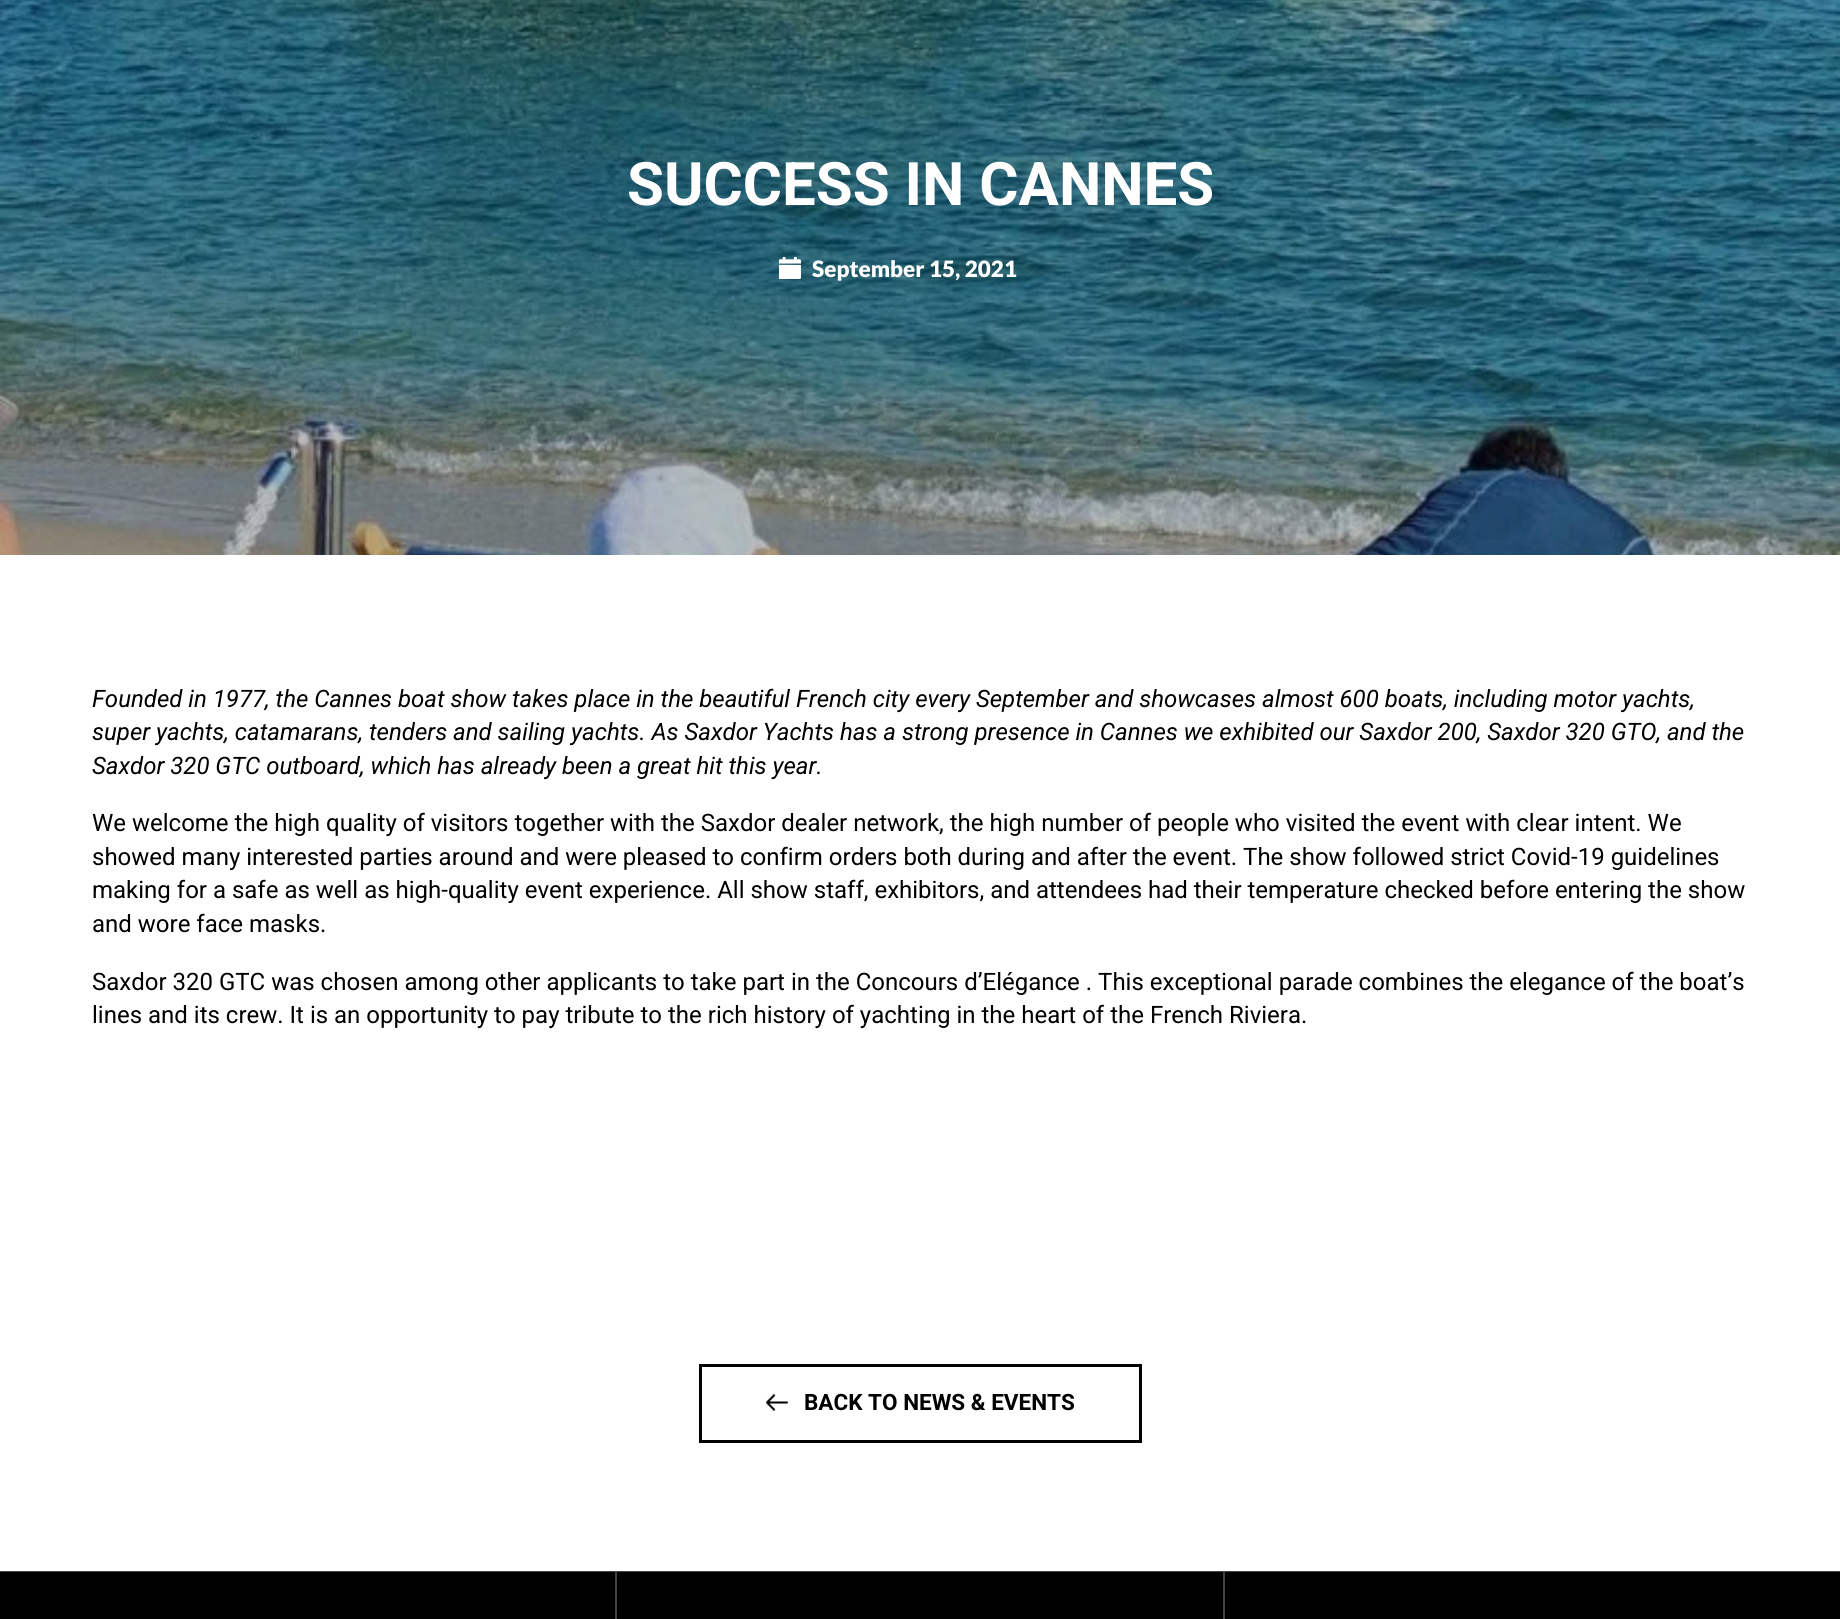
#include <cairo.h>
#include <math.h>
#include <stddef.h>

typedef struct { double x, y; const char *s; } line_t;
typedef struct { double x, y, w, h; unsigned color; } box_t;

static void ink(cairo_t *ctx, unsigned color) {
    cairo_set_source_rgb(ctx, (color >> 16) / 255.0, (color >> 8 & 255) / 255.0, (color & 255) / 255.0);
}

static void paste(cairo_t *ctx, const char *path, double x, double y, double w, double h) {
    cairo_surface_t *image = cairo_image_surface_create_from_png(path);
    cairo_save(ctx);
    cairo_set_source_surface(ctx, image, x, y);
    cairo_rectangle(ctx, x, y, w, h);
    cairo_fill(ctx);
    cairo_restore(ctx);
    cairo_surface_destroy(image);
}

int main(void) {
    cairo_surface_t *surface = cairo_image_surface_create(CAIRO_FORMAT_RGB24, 1840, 1619);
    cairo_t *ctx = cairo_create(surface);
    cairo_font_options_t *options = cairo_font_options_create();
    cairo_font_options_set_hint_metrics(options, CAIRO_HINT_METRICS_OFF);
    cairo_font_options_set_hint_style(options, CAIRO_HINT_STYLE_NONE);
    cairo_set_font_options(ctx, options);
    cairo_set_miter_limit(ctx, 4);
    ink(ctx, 0xFFFFFF);
    cairo_paint(ctx);
    paste(ctx, "media/1.png", 0, 0, 1840, 555);
    cairo_select_font_face(ctx, "Roboto", CAIRO_FONT_SLANT_NORMAL, CAIRO_FONT_WEIGHT_BOLD);
    cairo_set_font_size(ctx, 60);
    ink(ctx, 0xFFFFFF);
    cairo_move_to(ctx, 627, 205);
    cairo_show_text(ctx, "SUCCESS IN CANNES");
    paste(ctx, "media/2.png", 779, 257, 22, 22);
    cairo_select_font_face(ctx, "Lato Black", CAIRO_FONT_SLANT_NORMAL, CAIRO_FONT_WEIGHT_NORMAL);
    cairo_set_font_size(ctx, 22.5);
    cairo_move_to(ctx, 812, 277);
    cairo_show_text(ctx, "September 15, 2021");
    cairo_select_font_face(ctx, "Roboto", CAIRO_FONT_SLANT_ITALIC, CAIRO_FONT_WEIGHT_NORMAL);
    cairo_set_font_size(ctx, 24);
    ink(ctx, 0x000000);
    {
        static const line_t items[] = {
            {92, 707, "Founded in 1977, the Cannes boat show takes place in the beautiful French city every September and showcases almost 600 boats, including motor yachts,"},
            {92, 740, "super yachts, catamarans, tenders and sailing yachts. As Saxdor Yachts has a strong presence in Cannes we exhibited our Saxdor 200, Saxdor 320 GTO, and the"},
            {92, 774, "Saxdor 320 GTC outboard, which has already been a great hit this year."},
        };
        for (size_t i = 0; i < sizeof items / sizeof *items; i++) {
            cairo_move_to(ctx, items[i].x, items[i].y);
            cairo_show_text(ctx, items[i].s);
        }
    }
    cairo_select_font_face(ctx, "Roboto", CAIRO_FONT_SLANT_NORMAL, CAIRO_FONT_WEIGHT_NORMAL);
    {
        static const line_t items[] = {
            {92, 831, "We welcome the high quality of visitors together with the Saxdor dealer network, the high number of people who visited the event with clear intent. We"},
            {92, 865, "showed many interested parties around and were pleased to confirm orders both during and after the event. The show followed strict Covid-19 guidelines"},
            {92, 898, "making for a safe as well as high-quality event experience. All show staff, exhibitors, and attendees had their temperature checked before entering the show"},
            {92, 932, "and wore face masks."},
            {92, 990, "Saxdor 320 GTC was chosen among other applicants to take part in the Concours d’Elégance . This exceptional parade combines the elegance of the boat’s"},
            {92, 1023, "lines and its crew. It is an opportunity to pay tribute to the rich history of yachting in the heart of the French Riviera."},
        };
        for (size_t i = 0; i < sizeof items / sizeof *items; i++) {
            cairo_move_to(ctx, items[i].x, items[i].y);
            cairo_show_text(ctx, items[i].s);
        }
    }
    cairo_rectangle(ctx, 700.5, 1365.5, 440, 76);
    cairo_set_line_width(ctx, 3);
    cairo_stroke(ctx);
    paste(ctx, "media/3.png", 766, 1393, 22, 19);
    cairo_select_font_face(ctx, "Roboto", CAIRO_FONT_SLANT_NORMAL, CAIRO_FONT_WEIGHT_BOLD);
    cairo_set_font_size(ctx, 22.5);
    cairo_move_to(ctx, 804, 1410);
    cairo_show_text(ctx, "BACK TO NEWS & EVENTS");
    {
        static const box_t items[] = {
            {0, 1571, 1840, 1, 0x444444},
            {0, 1572, 1840, 47, 0x000000},
            {615, 1572, 2, 47, 0x444444},
            {1223, 1572, 2, 47, 0x444444},
        };
        for (size_t i = 0; i < sizeof items / sizeof *items; i++) {
            ink(ctx, items[i].color);
            cairo_rectangle(ctx, items[i].x, items[i].y, items[i].w, items[i].h);
            cairo_fill(ctx);
        }
    }
    cairo_surface_write_to_png(surface, "image.png");
    cairo_font_options_destroy(options);
    cairo_destroy(ctx);
    cairo_surface_destroy(surface);
    return 0;
}
